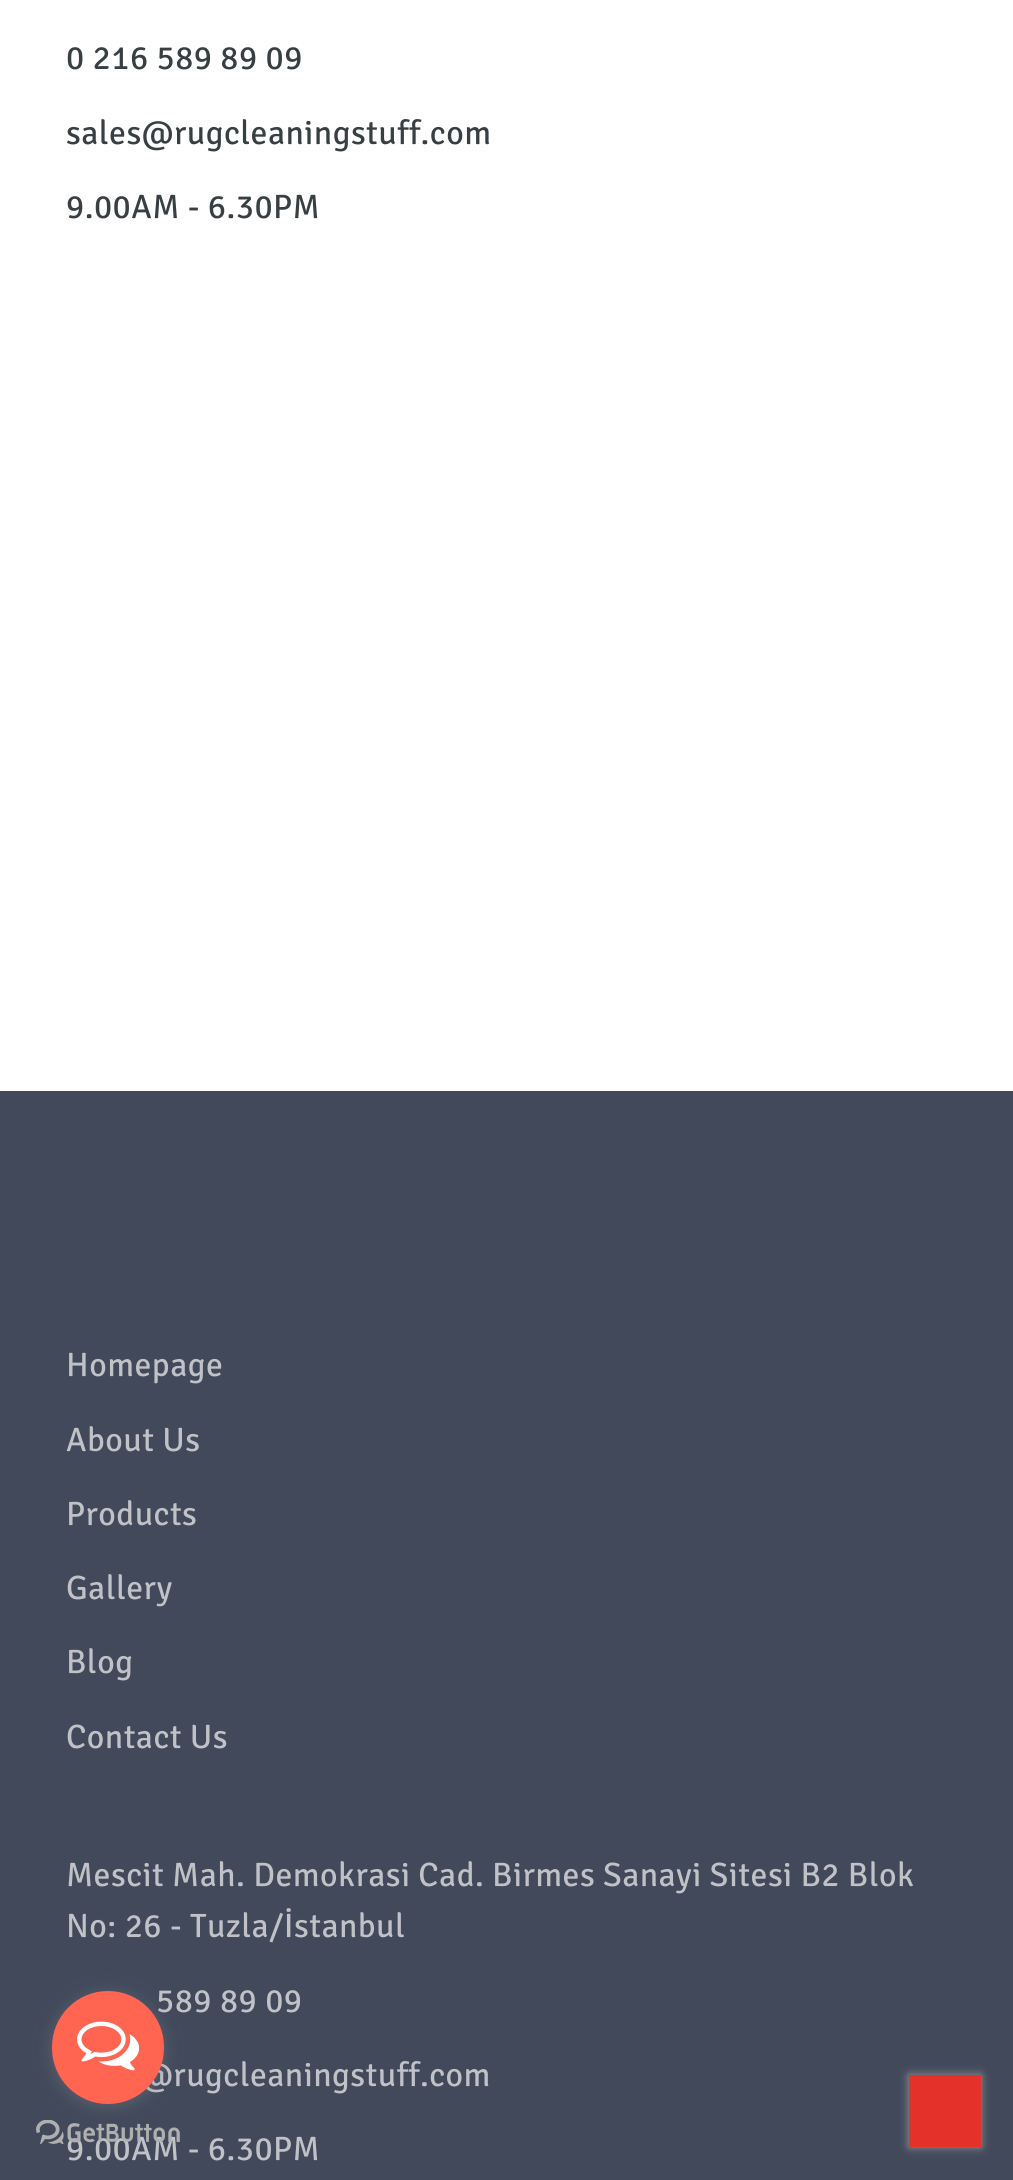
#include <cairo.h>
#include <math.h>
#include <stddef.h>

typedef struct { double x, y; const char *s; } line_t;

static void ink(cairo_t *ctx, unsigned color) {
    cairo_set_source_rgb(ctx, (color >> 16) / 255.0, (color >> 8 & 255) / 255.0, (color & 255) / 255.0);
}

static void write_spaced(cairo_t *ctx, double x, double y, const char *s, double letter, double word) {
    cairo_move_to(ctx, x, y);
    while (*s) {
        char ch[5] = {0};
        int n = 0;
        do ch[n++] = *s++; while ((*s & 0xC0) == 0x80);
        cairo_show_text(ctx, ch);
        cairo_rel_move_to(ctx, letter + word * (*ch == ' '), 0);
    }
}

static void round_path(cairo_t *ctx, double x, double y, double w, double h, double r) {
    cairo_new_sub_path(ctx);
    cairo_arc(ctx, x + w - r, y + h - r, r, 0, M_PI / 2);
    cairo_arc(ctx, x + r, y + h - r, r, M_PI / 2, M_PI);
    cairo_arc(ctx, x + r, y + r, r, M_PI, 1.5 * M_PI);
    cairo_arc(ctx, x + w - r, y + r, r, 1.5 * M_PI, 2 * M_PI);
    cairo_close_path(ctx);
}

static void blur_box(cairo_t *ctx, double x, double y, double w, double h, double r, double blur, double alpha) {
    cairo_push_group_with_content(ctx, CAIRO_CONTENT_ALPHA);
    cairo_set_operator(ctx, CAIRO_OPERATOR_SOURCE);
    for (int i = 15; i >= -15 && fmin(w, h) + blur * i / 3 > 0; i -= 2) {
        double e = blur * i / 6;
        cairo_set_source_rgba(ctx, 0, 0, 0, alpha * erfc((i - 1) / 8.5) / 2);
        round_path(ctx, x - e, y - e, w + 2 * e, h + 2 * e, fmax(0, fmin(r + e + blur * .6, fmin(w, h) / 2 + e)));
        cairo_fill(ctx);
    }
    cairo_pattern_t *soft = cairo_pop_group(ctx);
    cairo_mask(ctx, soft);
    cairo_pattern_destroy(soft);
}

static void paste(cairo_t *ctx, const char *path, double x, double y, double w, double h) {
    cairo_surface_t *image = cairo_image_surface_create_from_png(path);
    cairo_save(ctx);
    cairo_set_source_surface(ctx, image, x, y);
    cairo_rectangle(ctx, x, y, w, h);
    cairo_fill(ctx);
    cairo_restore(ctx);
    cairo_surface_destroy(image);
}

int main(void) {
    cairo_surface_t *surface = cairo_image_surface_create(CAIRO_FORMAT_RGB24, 1013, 2180);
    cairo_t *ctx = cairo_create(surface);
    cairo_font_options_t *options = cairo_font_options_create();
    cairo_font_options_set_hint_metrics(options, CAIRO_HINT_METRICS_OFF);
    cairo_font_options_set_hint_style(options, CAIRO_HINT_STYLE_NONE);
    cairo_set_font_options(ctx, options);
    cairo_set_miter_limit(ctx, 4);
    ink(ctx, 0xFFFFFF);
    cairo_paint(ctx);
    cairo_select_font_face(ctx, "Signika Negative", CAIRO_FONT_SLANT_NORMAL, CAIRO_FONT_WEIGHT_NORMAL);
    cairo_set_font_size(ctx, 33.75);
    ink(ctx, 0x383F42);
    {
        static const line_t items[] = {
            {66, 69, "0 216 589 89 09"},
            {66, 144, "sales@rugcleaningstuff.com"},
            {66, 218, "9.00AM - 6.30PM"},
        };
        for (size_t i = 0; i < sizeof items / sizeof *items; i++) {
            write_spaced(ctx, items[i].x, items[i].y, items[i].s, 0.45, 0);
        }
    }
    ink(ctx, 0x41495B);
    cairo_rectangle(ctx, 0, 1091, 1013, 1089);
    cairo_fill(ctx);
    ink(ctx, 0xC1C2C7);
    {
        static const line_t items[] = {
            {66, 1376, "Homepage"},
            {66, 1451, "About Us"},
            {66, 1525, "Products"},
            {66, 1599, "Gallery"},
            {66, 1673, "Blog"},
            {66, 1748, "Contact Us"},
            {66, 1886, "Mescit Mah. Demokrasi Cad. Birmes Sanayi Sitesi B2 Blok"},
            {66, 1937, "No: 26 - Tuzla/İstanbul"},
            {156, 2012, "589 89 09"},
            {141, 2086, "@rugcleaningstuff.com"},
            {66, 2160, "9.00AM - 6.30PM"},
        };
        for (size_t i = 0; i < sizeof items / sizeof *items; i++) {
            write_spaced(ctx, items[i].x, items[i].y, items[i].s, 0.45, 0);
        }
    }
    paste(ctx, "media/2.png", 36, 2120, 144, 24);
    ink(ctx, 0x888888);
    blur_box(ctx, 52, 1994, 112, 112, 56, 8, 0.4);
    ink(ctx, 0xFF6550);
    round_path(ctx, 52, 1991, 112, 113, 56);
    cairo_fill(ctx);
    paste(ctx, "media/1.png", 77, 2021, 63, 50);
    ink(ctx, 0x999999);
    blur_box(ctx, 909, 2075, 72, 72, 0, 4.5, 1);
    ink(ctx, 0xE4322B);
    cairo_rectangle(ctx, 909, 2075, 72, 72);
    cairo_fill(ctx);
    cairo_surface_write_to_png(surface, "image.png");
    cairo_font_options_destroy(options);
    cairo_destroy(ctx);
    cairo_surface_destroy(surface);
    return 0;
}
